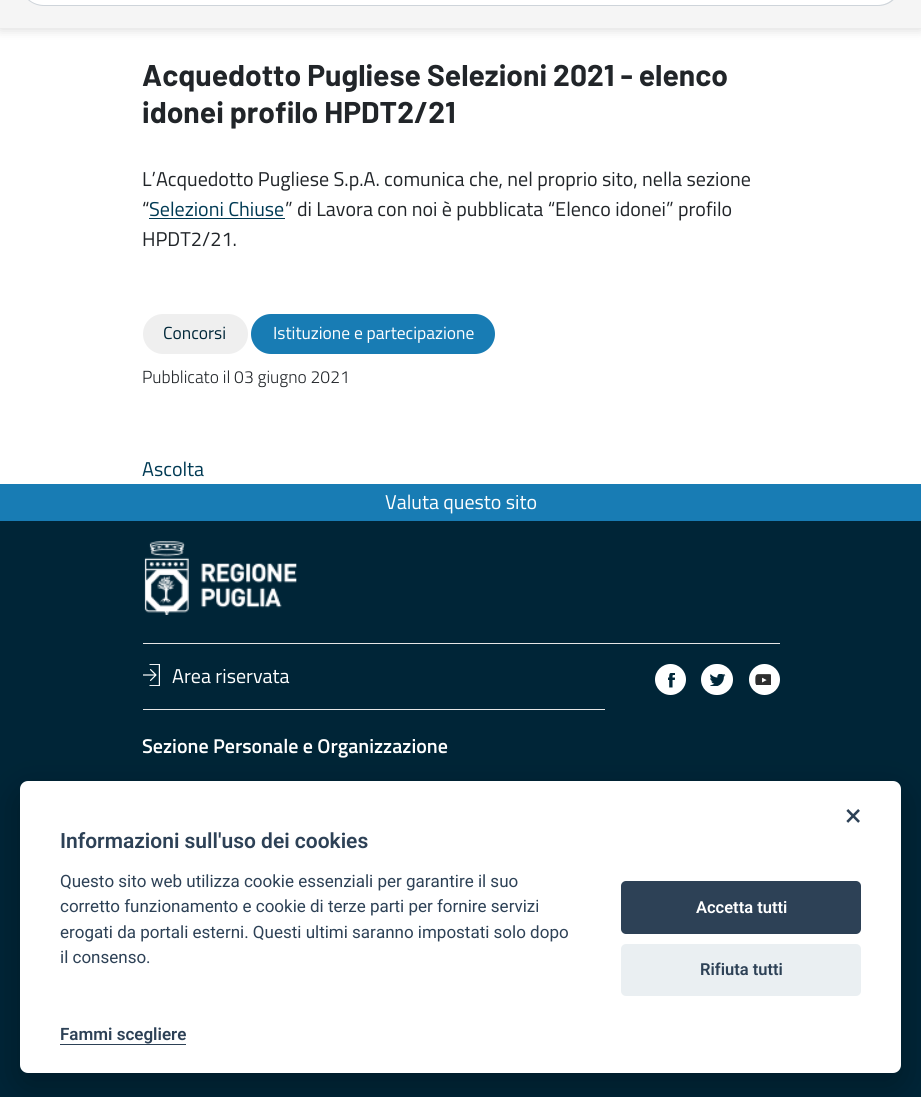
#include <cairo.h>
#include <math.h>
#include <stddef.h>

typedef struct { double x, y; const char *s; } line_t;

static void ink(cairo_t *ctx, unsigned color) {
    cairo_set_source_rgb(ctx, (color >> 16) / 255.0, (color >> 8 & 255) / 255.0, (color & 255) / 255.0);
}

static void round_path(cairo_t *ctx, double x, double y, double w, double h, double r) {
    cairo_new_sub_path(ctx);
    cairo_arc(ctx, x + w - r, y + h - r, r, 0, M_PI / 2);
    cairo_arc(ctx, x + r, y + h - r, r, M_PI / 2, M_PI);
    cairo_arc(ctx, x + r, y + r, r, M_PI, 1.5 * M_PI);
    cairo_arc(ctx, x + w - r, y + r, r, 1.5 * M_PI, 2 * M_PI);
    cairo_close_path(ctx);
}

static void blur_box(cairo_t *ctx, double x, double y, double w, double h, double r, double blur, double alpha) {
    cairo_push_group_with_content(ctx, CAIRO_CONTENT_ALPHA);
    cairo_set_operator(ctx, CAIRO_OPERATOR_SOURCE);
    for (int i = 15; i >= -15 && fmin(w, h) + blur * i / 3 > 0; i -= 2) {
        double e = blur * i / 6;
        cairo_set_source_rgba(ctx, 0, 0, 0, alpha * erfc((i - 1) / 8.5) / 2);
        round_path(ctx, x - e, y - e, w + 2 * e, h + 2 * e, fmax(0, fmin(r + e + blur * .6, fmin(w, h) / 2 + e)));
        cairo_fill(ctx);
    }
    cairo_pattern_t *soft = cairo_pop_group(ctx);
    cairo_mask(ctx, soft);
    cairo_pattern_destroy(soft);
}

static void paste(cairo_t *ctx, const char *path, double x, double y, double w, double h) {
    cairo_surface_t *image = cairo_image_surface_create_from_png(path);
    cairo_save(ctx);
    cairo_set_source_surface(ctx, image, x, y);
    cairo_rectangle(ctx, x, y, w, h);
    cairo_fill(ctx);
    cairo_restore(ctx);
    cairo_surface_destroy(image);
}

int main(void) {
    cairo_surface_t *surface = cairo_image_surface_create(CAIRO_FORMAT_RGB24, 921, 1097);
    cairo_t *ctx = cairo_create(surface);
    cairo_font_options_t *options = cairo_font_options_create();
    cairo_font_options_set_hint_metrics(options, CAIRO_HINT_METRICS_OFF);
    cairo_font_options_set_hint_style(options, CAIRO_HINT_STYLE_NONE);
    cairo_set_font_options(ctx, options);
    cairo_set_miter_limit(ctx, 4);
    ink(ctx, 0xFFFFFF);
    cairo_paint(ctx);
    ink(ctx, 0x000000);
    blur_box(ctx, 0, -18, 921, 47, 0, 6, 0.16);
    ink(ctx, 0xF5F5F5);
    cairo_rectangle(ctx, 0, 0, 921, 28);
    cairo_fill(ctx);
    ink(ctx, 0xFFFFFF);
    cairo_new_path(ctx);
    cairo_move_to(ctx, 43.5, -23);
    cairo_line_to(ctx, 848, -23);
    cairo_line_to(ctx, 848, 5);
    cairo_line_to(ctx, 43.5, 5);
    cairo_curve_to(ctx, 31, 5, 21, -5, 21, -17.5);
    cairo_line_to(ctx, 21, -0.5);
    cairo_curve_to(ctx, 21, -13, 31, -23, 43.5, -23);
    cairo_close_path(ctx);
    cairo_fill(ctx);
    ink(ctx, 0xCED4DA);
    cairo_set_fill_rule(ctx, CAIRO_FILL_RULE_EVEN_ODD);
    cairo_new_path(ctx);
    cairo_move_to(ctx, 44, -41);
    cairo_line_to(ctx, 848, -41);
    cairo_line_to(ctx, 848, 6);
    cairo_line_to(ctx, 44, 6);
    cairo_curve_to(ctx, 31, 6, 20, -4, 20, -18);
    cairo_curve_to(ctx, 20, -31, 31, -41, 44, -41);
    cairo_close_path(ctx);
    cairo_move_to(ctx, 44, -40);
    cairo_line_to(ctx, 848, -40);
    cairo_line_to(ctx, 848, 5);
    cairo_line_to(ctx, 44, 5);
    cairo_curve_to(ctx, 31, 5, 21, -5, 21, -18);
    cairo_curve_to(ctx, 21, -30, 31, -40, 44, -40);
    cairo_close_path(ctx);
    cairo_fill(ctx);
    ink(ctx, 0xFFFFFF);
    cairo_new_path(ctx);
    cairo_move_to(ctx, 848, -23);
    cairo_line_to(ctx, 877.5, -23);
    cairo_curve_to(ctx, 890, -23, 900, -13, 900, -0.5);
    cairo_line_to(ctx, 900, -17.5);
    cairo_curve_to(ctx, 900, -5, 890, 5, 877.5, 5);
    cairo_line_to(ctx, 848, 5);
    cairo_close_path(ctx);
    cairo_fill(ctx);
    ink(ctx, 0xCED4DA);
    cairo_new_path(ctx);
    cairo_move_to(ctx, 848, -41);
    cairo_line_to(ctx, 878, -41);
    cairo_curve_to(ctx, 891, -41, 901, -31, 901, -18);
    cairo_curve_to(ctx, 901, -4, 891, 6, 878, 6);
    cairo_line_to(ctx, 848, 6);
    cairo_close_path(ctx);
    cairo_move_to(ctx, 848, -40);
    cairo_line_to(ctx, 878, -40);
    cairo_curve_to(ctx, 890, -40, 900, -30, 900, -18);
    cairo_curve_to(ctx, 900, -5, 890, 5, 878, 5);
    cairo_line_to(ctx, 848, 5);
    cairo_close_path(ctx);
    cairo_fill(ctx);
    cairo_select_font_face(ctx, "Barlow", CAIRO_FONT_SLANT_NORMAL, CAIRO_FONT_WEIGHT_BOLD);
    cairo_set_font_size(ctx, 30);
    ink(ctx, 0x212529);
    cairo_move_to(ctx, 142, 86);
    cairo_show_text(ctx, "Acquedotto Pugliese Selezioni 2021 - elenco");
    cairo_move_to(ctx, 142, 123);
    cairo_show_text(ctx, "idonei profilo HPDT2/21");
    cairo_select_font_face(ctx, "Titillium Web", CAIRO_FONT_SLANT_NORMAL, CAIRO_FONT_WEIGHT_NORMAL);
    cairo_set_font_size(ctx, 20);
    cairo_move_to(ctx, 142, 186);
    cairo_show_text(ctx, "L’Acquedotto Pugliese S.p.A. comunica che, nel proprio sito, nella sezione");
    cairo_move_to(ctx, 142, 216);
    cairo_show_text(ctx, "“");
    ink(ctx, 0x003A54);
    cairo_move_to(ctx, 149, 216);
    cairo_show_text(ctx, "Selezioni Chiuse");
    cairo_rectangle(ctx, 149, 218, 136, 1);
    cairo_fill(ctx);
    ink(ctx, 0x212529);
    cairo_move_to(ctx, 285, 216);
    cairo_show_text(ctx, "” di Lavora con noi è pubblicata “Elenco idonei” profilo");
    cairo_move_to(ctx, 142, 246);
    cairo_show_text(ctx, "HPDT2/21.");
    ink(ctx, 0xEFEFEF);
    round_path(ctx, 143, 314, 105, 40, 20);
    cairo_fill(ctx);
    cairo_set_font_size(ctx, 17.5);
    ink(ctx, 0x01283A);
    cairo_move_to(ctx, 163, 339);
    cairo_show_text(ctx, "Concorsi");
    ink(ctx, 0x187CB4);
    round_path(ctx, 251, 314, 244, 40, 20);
    cairo_fill(ctx);
    ink(ctx, 0xFFFFFF);
    cairo_move_to(ctx, 273, 339);
    cairo_show_text(ctx, "Istituzione e partecipazione");
    cairo_select_font_face(ctx, "Titillium Web Light", CAIRO_FONT_SLANT_NORMAL, CAIRO_FONT_WEIGHT_NORMAL);
    ink(ctx, 0x212529);
    cairo_move_to(ctx, 142, 383);
    cairo_show_text(ctx, "Pubblicato il 03 giugno 2021");
    cairo_select_font_face(ctx, "Titillium Web", CAIRO_FONT_SLANT_NORMAL, CAIRO_FONT_WEIGHT_NORMAL);
    cairo_set_font_size(ctx, 20);
    ink(ctx, 0x003A54);
    cairo_move_to(ctx, 142, 476);
    cairo_show_text(ctx, "Ascolta");
    ink(ctx, 0x187CB4);
    cairo_rectangle(ctx, 0, 484, 921, 37);
    cairo_fill(ctx);
    ink(ctx, 0xFFFFFF);
    cairo_move_to(ctx, 385, 509);
    cairo_show_text(ctx, "Valuta questo sito");
    ink(ctx, 0x002537);
    cairo_rectangle(ctx, 0, 521, 921, 576);
    cairo_fill(ctx);
    paste(ctx, "media/1.png", 144, 541, 153, 74);
    ink(ctx, 0xE6E6E6);
    cairo_rectangle(ctx, 143, 643, 637, 1);
    cairo_fill(ctx);
    paste(ctx, "media/2.png", 143, 664, 17, 22);
    ink(ctx, 0xFFFFFF);
    cairo_move_to(ctx, 172, 683);
    cairo_show_text(ctx, "Area riservata");
    cairo_new_path(ctx);
    cairo_arc(ctx, 670.5, 679.5, 15.5, 0, 2 * M_PI);
    cairo_fill(ctx);
    paste(ctx, "media/3.png", 668, 673, 7, 15);
    round_path(ctx, 701, 664, 32, 31, 15.5);
    cairo_fill(ctx);
    paste(ctx, "media/4.png", 710, 674, 16, 12);
    cairo_arc(ctx, 764.5, 679.5, 15.5, 0, 2 * M_PI);
    cairo_fill(ctx);
    paste(ctx, "media/5.png", 755, 674, 16, 11);
    ink(ctx, 0xE6E6E6);
    cairo_rectangle(ctx, 143, 709, 462, 1);
    cairo_fill(ctx);
    cairo_select_font_face(ctx, "Titillium Web SemiBold", CAIRO_FONT_SLANT_NORMAL, CAIRO_FONT_WEIGHT_NORMAL);
    ink(ctx, 0xFFFFFF);
    cairo_move_to(ctx, 142, 753);
    cairo_show_text(ctx, "Sezione Personale e Organizzazione");
    ink(ctx, 0x020203);
    blur_box(ctx, 20, 794, 881, 291, 8, 19, 0.28);
    ink(ctx, 0xFFFFFF);
    round_path(ctx, 20, 781, 881, 292, 8);
    cairo_fill(ctx);
    cairo_select_font_face(ctx, "Roboto", CAIRO_FONT_SLANT_NORMAL, CAIRO_FONT_WEIGHT_NORMAL);
    cairo_set_font_size(ctx, 31);
    ink(ctx, 0x2D4156);
    cairo_move_to(ctx, 845, 826);
    cairo_show_text(ctx, "×");
    cairo_select_font_face(ctx, "Roboto SemiBold", CAIRO_FONT_SLANT_NORMAL, CAIRO_FONT_WEIGHT_NORMAL);
    cairo_set_font_size(ctx, 21);
    cairo_move_to(ctx, 60, 848);
    cairo_show_text(ctx, "Informazioni sull'uso dei cookies");
    cairo_select_font_face(ctx, "Roboto", CAIRO_FONT_SLANT_NORMAL, CAIRO_FONT_WEIGHT_NORMAL);
    cairo_set_font_size(ctx, 17);
    {
        static const line_t items[] = {
            {60, 887, "Questo sito web utilizza cookie essenziali per garantire il suo"},
            {60, 912, "corretto funzionamento e cookie di terze parti per fornire servizi"},
            {60, 938, "erogati da portali esterni. Questi ultimi saranno impostati solo dopo"},
            {60, 963, "il consenso."},
        };
        for (size_t i = 0; i < sizeof items / sizeof *items; i++) {
            cairo_move_to(ctx, items[i].x, items[i].y);
            cairo_show_text(ctx, items[i].s);
        }
    }
    cairo_select_font_face(ctx, "Roboto SemiBold", CAIRO_FONT_SLANT_NORMAL, CAIRO_FONT_WEIGHT_NORMAL);
    cairo_move_to(ctx, 60, 1040);
    cairo_show_text(ctx, "Fammi scegliere");
    cairo_rectangle(ctx, 60, 1044, 126, 1);
    cairo_fill(ctx);
    round_path(ctx, 621, 881, 240, 53, 5);
    cairo_fill(ctx);
    cairo_set_font_size(ctx, 16.5);
    ink(ctx, 0xFFFFFF);
    cairo_move_to(ctx, 696, 913);
    cairo_show_text(ctx, "Accetta tutti");
    ink(ctx, 0xEAEFF2);
    round_path(ctx, 621, 944, 240, 52, 5);
    cairo_fill(ctx);
    ink(ctx, 0x2D4156);
    cairo_move_to(ctx, 700, 975);
    cairo_show_text(ctx, "Rifiuta tutti");
    cairo_surface_write_to_png(surface, "image.png");
    cairo_font_options_destroy(options);
    cairo_destroy(ctx);
    cairo_surface_destroy(surface);
    return 0;
}
